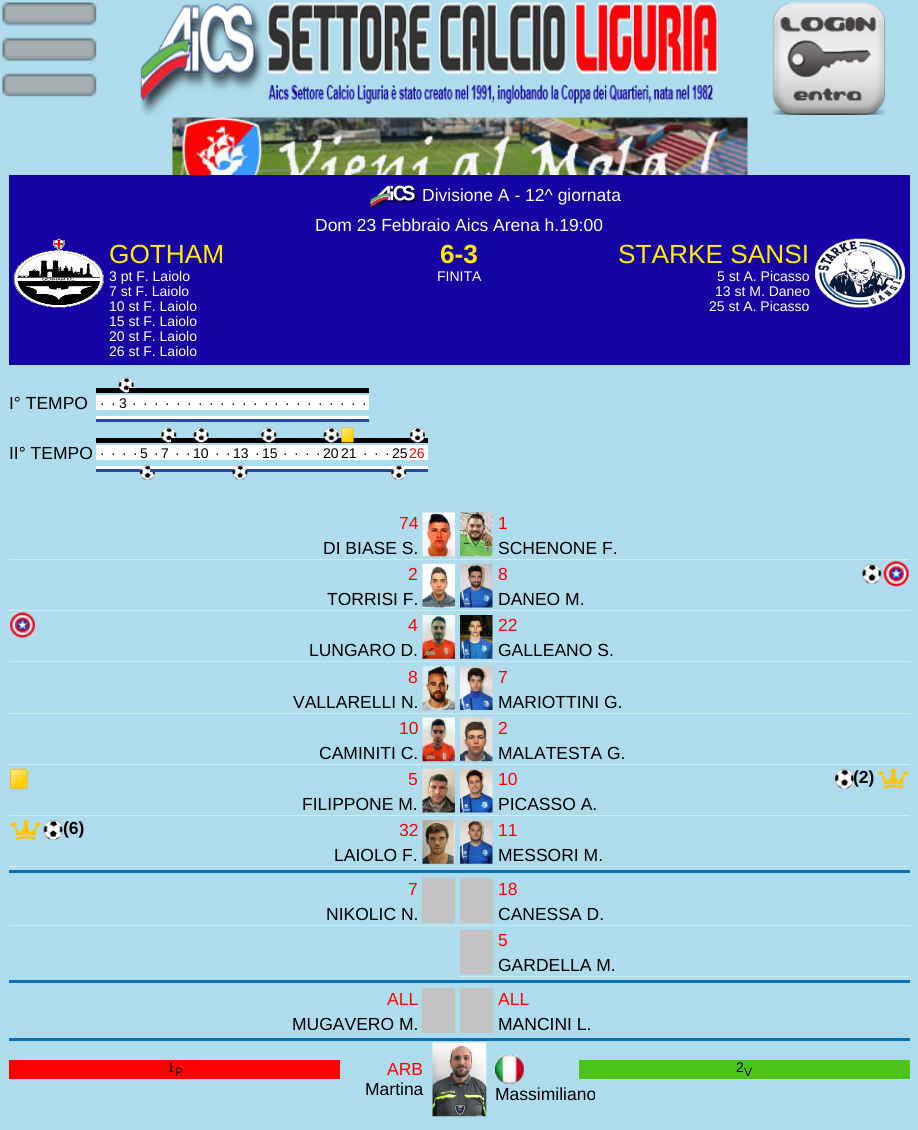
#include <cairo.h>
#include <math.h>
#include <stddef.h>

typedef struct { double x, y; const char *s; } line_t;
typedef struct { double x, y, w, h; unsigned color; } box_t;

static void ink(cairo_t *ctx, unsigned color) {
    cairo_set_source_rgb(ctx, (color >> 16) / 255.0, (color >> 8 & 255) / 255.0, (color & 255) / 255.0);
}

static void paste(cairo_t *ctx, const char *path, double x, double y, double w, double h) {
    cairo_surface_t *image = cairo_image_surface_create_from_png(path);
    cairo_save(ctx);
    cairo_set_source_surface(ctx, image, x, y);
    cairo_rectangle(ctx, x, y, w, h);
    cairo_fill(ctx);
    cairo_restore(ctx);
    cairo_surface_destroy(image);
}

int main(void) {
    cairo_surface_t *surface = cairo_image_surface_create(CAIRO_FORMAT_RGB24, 918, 1130);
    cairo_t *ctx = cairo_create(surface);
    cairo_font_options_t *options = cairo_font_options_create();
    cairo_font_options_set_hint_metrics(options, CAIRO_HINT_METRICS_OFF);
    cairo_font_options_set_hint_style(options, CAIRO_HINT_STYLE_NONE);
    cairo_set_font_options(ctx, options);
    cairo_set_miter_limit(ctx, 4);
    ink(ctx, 0xAFDCEC);
    cairo_paint(ctx);
    paste(ctx, "media/1.png", 2, 2, 95, 95);
    paste(ctx, "media/2.png", 140, 2, 578, 113);
    paste(ctx, "media/3.png", 772, 2, 113, 113);
    paste(ctx, "media/4.png", 172, 117, 576, 58);
    ink(ctx, 0x1503A3);
    cairo_rectangle(ctx, 9, 175, 901, 190);
    cairo_fill(ctx);
    paste(ctx, "media/5.png", 370, 185, 48, 25);
    cairo_select_font_face(ctx, "Liberation Sans", CAIRO_FONT_SLANT_NORMAL, CAIRO_FONT_WEIGHT_NORMAL);
    cairo_set_font_size(ctx, 17.5);
    ink(ctx, 0xFFFFFF);
    cairo_move_to(ctx, 422, 201);
    cairo_show_text(ctx, "Divisione A - 12^ giornata");
    cairo_move_to(ctx, 315, 231);
    cairo_show_text(ctx, "Dom 23 Febbraio Aics Arena h.19:00");
    paste(ctx, "media/6.png", 13, 238, 91, 70);
    cairo_set_font_size(ctx, 26.25);
    ink(ctx, 0xFFEC00);
    cairo_move_to(ctx, 109, 263);
    cairo_show_text(ctx, "GOTHAM");
    cairo_set_font_size(ctx, 14);
    ink(ctx, 0xFFFFFF);
    {
        static const line_t items[] = {
            {109, 281, "3 pt F. Laiolo"},
            {109, 296, "7 st F. Laiolo"},
            {109, 311, "10 st F. Laiolo"},
            {109, 326, "15 st F. Laiolo"},
            {109, 341, "20 st F. Laiolo"},
            {109, 356, "26 st F. Laiolo"},
        };
        for (size_t i = 0; i < sizeof items / sizeof *items; i++) {
            cairo_move_to(ctx, items[i].x, items[i].y);
            cairo_show_text(ctx, items[i].s);
        }
    }
    cairo_select_font_face(ctx, "Liberation Sans", CAIRO_FONT_SLANT_NORMAL, CAIRO_FONT_WEIGHT_BOLD);
    cairo_set_font_size(ctx, 26.25);
    ink(ctx, 0xFFEC00);
    cairo_move_to(ctx, 440, 263);
    cairo_show_text(ctx, "6-3");
    cairo_select_font_face(ctx, "Liberation Sans", CAIRO_FONT_SLANT_NORMAL, CAIRO_FONT_WEIGHT_NORMAL);
    cairo_set_font_size(ctx, 14);
    ink(ctx, 0xFFFFFF);
    cairo_move_to(ctx, 437, 281);
    cairo_show_text(ctx, "FINITA");
    cairo_set_font_size(ctx, 26.25);
    ink(ctx, 0xFFEC00);
    cairo_move_to(ctx, 618, 263);
    cairo_show_text(ctx, "STARKE SANSI");
    cairo_set_font_size(ctx, 14);
    ink(ctx, 0xFFFFFF);
    {
        static const line_t items[] = {
            {717, 281, "5 st A. Picasso"},
            {715, 296, "13 st M. Daneo"},
            {709, 311, "25 st A. Picasso"},
        };
        for (size_t i = 0; i < sizeof items / sizeof *items; i++) {
            cairo_move_to(ctx, items[i].x, items[i].y);
            cairo_show_text(ctx, items[i].s);
        }
    }
    paste(ctx, "media/7.png", 815, 238, 90, 70);
    cairo_set_font_size(ctx, 17.5);
    ink(ctx, 0x000000);
    cairo_move_to(ctx, 9, 409);
    cairo_show_text(ctx, "I° TEMPO");
    cairo_rectangle(ctx, 96, 388, 12, 5);
    cairo_fill(ctx);
    ink(ctx, 0xFFFFFF);
    cairo_rectangle(ctx, 96, 395, 273, 15);
    cairo_fill(ctx);
    cairo_set_font_size(ctx, 14);
    ink(ctx, 0x000000);
    cairo_move_to(ctx, 100, 408);
    cairo_show_text(ctx, "·");
    {
        static const box_t items[] = {
            {96, 416, 273, 3, 0xFFFFFF},
            {96, 419, 273, 3, 0x2448A8},
            {108, 388, 11, 5, 0x000000},
        };
        for (size_t i = 0; i < sizeof items / sizeof *items; i++) {
            ink(ctx, items[i].color);
            cairo_rectangle(ctx, items[i].x, items[i].y, items[i].w, items[i].h);
            cairo_fill(ctx);
        }
    }
    cairo_move_to(ctx, 111, 408);
    cairo_show_text(ctx, "·");
    cairo_rectangle(ctx, 119, 388, 10, 5);
    cairo_fill(ctx);
    paste(ctx, "media/8.png", 118, 377, 16, 16);
    cairo_move_to(ctx, 119, 408);
    cairo_show_text(ctx, "3");
    cairo_rectangle(ctx, 129, 388, 11, 5);
    cairo_fill(ctx);
    cairo_move_to(ctx, 132, 408);
    cairo_show_text(ctx, "·");
    cairo_rectangle(ctx, 140, 388, 10, 5);
    cairo_fill(ctx);
    cairo_move_to(ctx, 143, 408);
    cairo_show_text(ctx, "·");
    cairo_rectangle(ctx, 150, 388, 11, 5);
    cairo_fill(ctx);
    cairo_move_to(ctx, 154, 408);
    cairo_show_text(ctx, "·");
    cairo_rectangle(ctx, 161, 388, 12, 5);
    cairo_fill(ctx);
    cairo_move_to(ctx, 165, 408);
    cairo_show_text(ctx, "·");
    cairo_rectangle(ctx, 173, 388, 11, 5);
    cairo_fill(ctx);
    cairo_move_to(ctx, 176, 408);
    cairo_show_text(ctx, "·");
    cairo_rectangle(ctx, 184, 388, 10, 5);
    cairo_fill(ctx);
    cairo_move_to(ctx, 187, 408);
    cairo_show_text(ctx, "·");
    cairo_rectangle(ctx, 194, 388, 11, 5);
    cairo_fill(ctx);
    cairo_move_to(ctx, 198, 408);
    cairo_show_text(ctx, "·");
    cairo_rectangle(ctx, 205, 388, 11, 5);
    cairo_fill(ctx);
    cairo_move_to(ctx, 209, 408);
    cairo_show_text(ctx, "·");
    cairo_rectangle(ctx, 216, 388, 12, 5);
    cairo_fill(ctx);
    cairo_move_to(ctx, 220, 408);
    cairo_show_text(ctx, "·");
    cairo_rectangle(ctx, 228, 388, 10, 5);
    cairo_fill(ctx);
    cairo_move_to(ctx, 231, 408);
    cairo_show_text(ctx, "·");
    cairo_rectangle(ctx, 238, 388, 11, 5);
    cairo_fill(ctx);
    cairo_move_to(ctx, 242, 408);
    cairo_show_text(ctx, "·");
    cairo_rectangle(ctx, 249, 388, 11, 5);
    cairo_fill(ctx);
    cairo_move_to(ctx, 253, 408);
    cairo_show_text(ctx, "·");
    cairo_rectangle(ctx, 260, 388, 10, 5);
    cairo_fill(ctx);
    cairo_move_to(ctx, 264, 408);
    cairo_show_text(ctx, "·");
    cairo_rectangle(ctx, 270, 388, 11, 5);
    cairo_fill(ctx);
    cairo_move_to(ctx, 274, 408);
    cairo_show_text(ctx, "·");
    cairo_rectangle(ctx, 281, 388, 12, 5);
    cairo_fill(ctx);
    cairo_move_to(ctx, 285, 408);
    cairo_show_text(ctx, "·");
    cairo_rectangle(ctx, 293, 388, 11, 5);
    cairo_fill(ctx);
    cairo_move_to(ctx, 296, 408);
    cairo_show_text(ctx, "·");
    cairo_rectangle(ctx, 304, 388, 10, 5);
    cairo_fill(ctx);
    cairo_move_to(ctx, 307, 408);
    cairo_show_text(ctx, "·");
    cairo_rectangle(ctx, 314, 388, 11, 5);
    cairo_fill(ctx);
    cairo_move_to(ctx, 318, 408);
    cairo_show_text(ctx, "·");
    cairo_rectangle(ctx, 325, 388, 11, 5);
    cairo_fill(ctx);
    cairo_move_to(ctx, 329, 408);
    cairo_show_text(ctx, "·");
    cairo_rectangle(ctx, 336, 388, 12, 5);
    cairo_fill(ctx);
    cairo_move_to(ctx, 340, 408);
    cairo_show_text(ctx, "·");
    cairo_rectangle(ctx, 348, 388, 10, 5);
    cairo_fill(ctx);
    cairo_move_to(ctx, 351, 408);
    cairo_show_text(ctx, "·");
    cairo_rectangle(ctx, 358, 388, 11, 5);
    cairo_fill(ctx);
    cairo_move_to(ctx, 362, 408);
    cairo_show_text(ctx, "·");
    cairo_set_font_size(ctx, 17.5);
    cairo_move_to(ctx, 9, 459);
    cairo_show_text(ctx, "II° TEMPO");
    cairo_rectangle(ctx, 96, 438, 12, 5);
    cairo_fill(ctx);
    ink(ctx, 0xFFFFFF);
    cairo_rectangle(ctx, 96, 445, 332, 15);
    cairo_fill(ctx);
    cairo_set_font_size(ctx, 14);
    ink(ctx, 0x000000);
    cairo_move_to(ctx, 100, 458);
    cairo_show_text(ctx, "·");
    {
        static const box_t items[] = {
            {96, 466, 54, 3, 0xFFFFFF},
            {96, 469, 54, 3, 0x2448A8},
            {108, 438, 11, 5, 0x000000},
        };
        for (size_t i = 0; i < sizeof items / sizeof *items; i++) {
            ink(ctx, items[i].color);
            cairo_rectangle(ctx, items[i].x, items[i].y, items[i].w, items[i].h);
            cairo_fill(ctx);
        }
    }
    cairo_move_to(ctx, 111, 458);
    cairo_show_text(ctx, "·");
    cairo_rectangle(ctx, 119, 438, 11, 5);
    cairo_fill(ctx);
    cairo_move_to(ctx, 122, 458);
    cairo_show_text(ctx, "·");
    cairo_rectangle(ctx, 130, 438, 10, 5);
    cairo_fill(ctx);
    cairo_move_to(ctx, 133, 458);
    cairo_show_text(ctx, "·");
    cairo_rectangle(ctx, 140, 438, 10, 5);
    cairo_fill(ctx);
    cairo_move_to(ctx, 140, 458);
    cairo_show_text(ctx, "5");
    paste(ctx, "media/9.png", 140, 465, 15, 15);
    cairo_rectangle(ctx, 150, 438, 11, 5);
    cairo_fill(ctx);
    cairo_move_to(ctx, 154, 458);
    cairo_show_text(ctx, "·");
    {
        static const box_t items[] = {
            {150, 466, 278, 3, 0xFFFFFF},
            {150, 469, 278, 3, 0x2448A8},
            {161, 438, 10, 5, 0x000000},
        };
        for (size_t i = 0; i < sizeof items / sizeof *items; i++) {
            ink(ctx, items[i].color);
            cairo_rectangle(ctx, items[i].x, items[i].y, items[i].w, items[i].h);
            cairo_fill(ctx);
        }
    }
    paste(ctx, "media/10.png", 161, 427, 16, 16);
    cairo_move_to(ctx, 161, 458);
    cairo_show_text(ctx, "7");
    cairo_rectangle(ctx, 171, 438, 12, 5);
    cairo_fill(ctx);
    cairo_move_to(ctx, 175, 458);
    cairo_show_text(ctx, "·");
    cairo_rectangle(ctx, 183, 438, 11, 5);
    cairo_fill(ctx);
    cairo_move_to(ctx, 186, 458);
    cairo_show_text(ctx, "·");
    cairo_rectangle(ctx, 194, 438, 17, 5);
    cairo_fill(ctx);
    paste(ctx, "media/11.png", 193, 427, 16, 16);
    cairo_move_to(ctx, 193, 458);
    cairo_show_text(ctx, "10");
    cairo_rectangle(ctx, 211, 438, 12, 5);
    cairo_fill(ctx);
    cairo_move_to(ctx, 215, 458);
    cairo_show_text(ctx, "·");
    cairo_rectangle(ctx, 223, 438, 10, 5);
    cairo_fill(ctx);
    cairo_move_to(ctx, 226, 458);
    cairo_show_text(ctx, "·");
    cairo_rectangle(ctx, 233, 438, 18, 5);
    cairo_fill(ctx);
    cairo_move_to(ctx, 233, 458);
    cairo_show_text(ctx, "13");
    paste(ctx, "media/12.png", 232, 465, 16, 15);
    cairo_rectangle(ctx, 251, 438, 10, 5);
    cairo_fill(ctx);
    cairo_move_to(ctx, 255, 458);
    cairo_show_text(ctx, "·");
    cairo_rectangle(ctx, 261, 438, 19, 5);
    cairo_fill(ctx);
    paste(ctx, "media/13.png", 261, 427, 16, 16);
    cairo_move_to(ctx, 262, 458);
    cairo_show_text(ctx, "15");
    cairo_rectangle(ctx, 280, 438, 10, 5);
    cairo_fill(ctx);
    cairo_move_to(ctx, 283, 458);
    cairo_show_text(ctx, "·");
    cairo_rectangle(ctx, 290, 438, 11, 5);
    cairo_fill(ctx);
    cairo_move_to(ctx, 294, 458);
    cairo_show_text(ctx, "·");
    cairo_rectangle(ctx, 301, 438, 12, 5);
    cairo_fill(ctx);
    cairo_move_to(ctx, 305, 458);
    cairo_show_text(ctx, "·");
    cairo_rectangle(ctx, 313, 438, 11, 5);
    cairo_fill(ctx);
    cairo_move_to(ctx, 316, 458);
    cairo_show_text(ctx, "·");
    cairo_rectangle(ctx, 324, 438, 17, 5);
    cairo_fill(ctx);
    paste(ctx, "media/11.png", 323, 427, 16, 16);
    cairo_move_to(ctx, 323, 458);
    cairo_show_text(ctx, "20");
    cairo_rectangle(ctx, 341, 438, 18, 5);
    cairo_fill(ctx);
    paste(ctx, "media/14.png", 341, 427, 13, 16);
    cairo_move_to(ctx, 341, 458);
    cairo_show_text(ctx, "21");
    cairo_rectangle(ctx, 359, 438, 11, 5);
    cairo_fill(ctx);
    cairo_move_to(ctx, 363, 458);
    cairo_show_text(ctx, "·");
    cairo_rectangle(ctx, 370, 438, 11, 5);
    cairo_fill(ctx);
    cairo_move_to(ctx, 374, 458);
    cairo_show_text(ctx, "·");
    cairo_rectangle(ctx, 381, 438, 10, 5);
    cairo_fill(ctx);
    cairo_move_to(ctx, 385, 458);
    cairo_show_text(ctx, "·");
    cairo_rectangle(ctx, 391, 438, 19, 5);
    cairo_fill(ctx);
    cairo_move_to(ctx, 392, 458);
    cairo_show_text(ctx, "25");
    paste(ctx, "media/15.png", 391, 465, 16, 15);
    cairo_rectangle(ctx, 410, 438, 18, 5);
    cairo_fill(ctx);
    paste(ctx, "media/16.png", 410, 427, 15, 16);
    ink(ctx, 0xFF0000);
    cairo_move_to(ctx, 409, 458);
    cairo_show_text(ctx, "26");
    cairo_set_font_size(ctx, 17.5);
    cairo_move_to(ctx, 399, 529);
    cairo_show_text(ctx, "74");
    paste(ctx, "media/17.png", 422, 512, 33, 45);
    ink(ctx, 0x000000);
    cairo_move_to(ctx, 323, 554);
    cairo_show_text(ctx, "DI BIASE S.");
    ink(ctx, 0xCFECEC);
    cairo_rectangle(ctx, 9, 559, 901, 1);
    cairo_fill(ctx);
    ink(ctx, 0xFF0000);
    cairo_move_to(ctx, 408, 580);
    cairo_show_text(ctx, "2");
    paste(ctx, "media/18.png", 422, 563, 33, 45);
    ink(ctx, 0x000000);
    cairo_move_to(ctx, 327, 605);
    cairo_show_text(ctx, "TORRISI F.");
    ink(ctx, 0xCFECEC);
    cairo_rectangle(ctx, 9, 610, 901, 1);
    cairo_fill(ctx);
    paste(ctx, "media/19.png", 10, 612, 25, 26);
    ink(ctx, 0xFF0000);
    cairo_move_to(ctx, 408, 631);
    cairo_show_text(ctx, "4");
    paste(ctx, "media/20.png", 422, 615, 33, 44);
    ink(ctx, 0x000000);
    cairo_move_to(ctx, 309, 656);
    cairo_show_text(ctx, "LUNGARO D.");
    ink(ctx, 0xCFECEC);
    cairo_rectangle(ctx, 9, 661, 901, 1);
    cairo_fill(ctx);
    ink(ctx, 0xFF0000);
    cairo_move_to(ctx, 408, 683);
    cairo_show_text(ctx, "8");
    paste(ctx, "media/21.png", 422, 666, 33, 44);
    ink(ctx, 0x000000);
    cairo_move_to(ctx, 293, 708);
    cairo_show_text(ctx, "VALLARELLI N.");
    ink(ctx, 0xCFECEC);
    cairo_rectangle(ctx, 9, 713, 901, 1);
    cairo_fill(ctx);
    ink(ctx, 0xFF0000);
    cairo_move_to(ctx, 399, 734);
    cairo_show_text(ctx, "10");
    paste(ctx, "media/22.png", 422, 717, 33, 45);
    ink(ctx, 0x000000);
    cairo_move_to(ctx, 319, 759);
    cairo_show_text(ctx, "CAMINITI C.");
    ink(ctx, 0xCFECEC);
    cairo_rectangle(ctx, 9, 764, 901, 1);
    cairo_fill(ctx);
    paste(ctx, "media/23.png", 10, 768, 18, 21);
    ink(ctx, 0xFF0000);
    cairo_move_to(ctx, 408, 785);
    cairo_show_text(ctx, "5");
    paste(ctx, "media/24.png", 422, 768, 33, 45);
    ink(ctx, 0x000000);
    cairo_move_to(ctx, 302, 810);
    cairo_show_text(ctx, "FILIPPONE M.");
    ink(ctx, 0xCFECEC);
    cairo_rectangle(ctx, 9, 815, 901, 1);
    cairo_fill(ctx);
    paste(ctx, "media/25.png", 10, 820, 32, 20);
    paste(ctx, "media/26.png", 43, 820, 20, 20);
    cairo_select_font_face(ctx, "Liberation Sans", CAIRO_FONT_SLANT_NORMAL, CAIRO_FONT_WEIGHT_BOLD);
    ink(ctx, 0x000000);
    cairo_move_to(ctx, 63, 834);
    cairo_show_text(ctx, "(6)");
    cairo_select_font_face(ctx, "Liberation Sans", CAIRO_FONT_SLANT_NORMAL, CAIRO_FONT_WEIGHT_NORMAL);
    ink(ctx, 0xFF0000);
    cairo_move_to(ctx, 399, 836);
    cairo_show_text(ctx, "32");
    paste(ctx, "media/27.png", 422, 820, 33, 44);
    ink(ctx, 0x000000);
    cairo_move_to(ctx, 334, 861);
    cairo_show_text(ctx, "LAIOLO F.");
    ink(ctx, 0xCFECEC);
    cairo_rectangle(ctx, 9, 866, 901, 1);
    cairo_fill(ctx);
    paste(ctx, "media/28.png", 460, 512, 33, 45);
    ink(ctx, 0xFF0000);
    cairo_move_to(ctx, 498, 529);
    cairo_show_text(ctx, "1");
    ink(ctx, 0x000000);
    cairo_move_to(ctx, 498, 554);
    cairo_show_text(ctx, "SCHENONE F.");
    paste(ctx, "media/29.png", 460, 563, 33, 45);
    ink(ctx, 0xFF0000);
    cairo_move_to(ctx, 498, 580);
    cairo_show_text(ctx, "8");
    paste(ctx, "media/30.png", 862, 563, 20, 21);
    paste(ctx, "media/31.png", 883, 561, 26, 26);
    ink(ctx, 0x000000);
    cairo_move_to(ctx, 498, 605);
    cairo_show_text(ctx, "DANEO M.");
    paste(ctx, "media/32.png", 460, 615, 33, 44);
    ink(ctx, 0xFF0000);
    cairo_move_to(ctx, 498, 631);
    cairo_show_text(ctx, "22");
    ink(ctx, 0x000000);
    cairo_move_to(ctx, 498, 656);
    cairo_show_text(ctx, "GALLEANO S.");
    paste(ctx, "media/33.png", 460, 666, 33, 44);
    ink(ctx, 0xFF0000);
    cairo_move_to(ctx, 498, 683);
    cairo_show_text(ctx, "7");
    ink(ctx, 0x000000);
    cairo_move_to(ctx, 498, 708);
    cairo_show_text(ctx, "MARIOTTINI G.");
    paste(ctx, "media/34.png", 460, 717, 33, 45);
    ink(ctx, 0xFF0000);
    cairo_move_to(ctx, 498, 734);
    cairo_show_text(ctx, "2");
    ink(ctx, 0x000000);
    cairo_move_to(ctx, 498, 759);
    cairo_show_text(ctx, "MALATESTA G.");
    paste(ctx, "media/35.png", 460, 768, 33, 45);
    ink(ctx, 0xFF0000);
    cairo_move_to(ctx, 498, 785);
    cairo_show_text(ctx, "10");
    paste(ctx, "media/36.png", 835, 768, 19, 21);
    cairo_select_font_face(ctx, "Liberation Sans", CAIRO_FONT_SLANT_NORMAL, CAIRO_FONT_WEIGHT_BOLD);
    ink(ctx, 0x000000);
    cairo_move_to(ctx, 853, 783);
    cairo_show_text(ctx, "(2)");
    paste(ctx, "media/37.png", 877, 768, 32, 21);
    cairo_select_font_face(ctx, "Liberation Sans", CAIRO_FONT_SLANT_NORMAL, CAIRO_FONT_WEIGHT_NORMAL);
    cairo_move_to(ctx, 498, 810);
    cairo_show_text(ctx, "PICASSO A.");
    paste(ctx, "media/38.png", 460, 820, 33, 44);
    ink(ctx, 0xFF0000);
    cairo_move_to(ctx, 498, 836);
    cairo_show_text(ctx, "11");
    ink(ctx, 0x000000);
    cairo_move_to(ctx, 498, 861);
    cairo_show_text(ctx, "MESSORI M.");
    ink(ctx, 0x0A71B3);
    cairo_rectangle(ctx, 9, 870, 901, 3);
    cairo_fill(ctx);
    ink(ctx, 0xFF0000);
    cairo_move_to(ctx, 408, 895);
    cairo_show_text(ctx, "7");
    ink(ctx, 0xC3C3C3);
    cairo_rectangle(ctx, 422, 878, 33, 45);
    cairo_fill(ctx);
    ink(ctx, 0x000000);
    cairo_move_to(ctx, 326, 920);
    cairo_show_text(ctx, "NIKOLIC N.");
    ink(ctx, 0xCFECEC);
    cairo_rectangle(ctx, 9, 925, 901, 1);
    cairo_fill(ctx);
    ink(ctx, 0xC3C3C3);
    cairo_rectangle(ctx, 460, 878, 33, 45);
    cairo_fill(ctx);
    ink(ctx, 0xFF0000);
    cairo_move_to(ctx, 498, 895);
    cairo_show_text(ctx, "18");
    ink(ctx, 0x000000);
    cairo_move_to(ctx, 498, 920);
    cairo_show_text(ctx, "CANESSA D.");
    ink(ctx, 0xC3C3C3);
    cairo_rectangle(ctx, 460, 930, 33, 44);
    cairo_fill(ctx);
    ink(ctx, 0xFF0000);
    cairo_move_to(ctx, 498, 946);
    cairo_show_text(ctx, "5");
    ink(ctx, 0x000000);
    cairo_move_to(ctx, 498, 971);
    cairo_show_text(ctx, "GARDELLA M.");
    ink(ctx, 0xCFECEC);
    cairo_rectangle(ctx, 459, 976, 451, 1);
    cairo_fill(ctx);
    ink(ctx, 0x0A71B3);
    cairo_rectangle(ctx, 9, 980, 901, 3);
    cairo_fill(ctx);
    ink(ctx, 0xFF0000);
    cairo_move_to(ctx, 387, 1005);
    cairo_show_text(ctx, "ALL");
    ink(ctx, 0xC3C3C3);
    cairo_rectangle(ctx, 422, 988, 33, 45);
    cairo_fill(ctx);
    ink(ctx, 0x000000);
    cairo_move_to(ctx, 292, 1030);
    cairo_show_text(ctx, "MUGAVERO M.");
    ink(ctx, 0xC3C3C3);
    cairo_rectangle(ctx, 460, 988, 33, 45);
    cairo_fill(ctx);
    ink(ctx, 0xFF0000);
    cairo_move_to(ctx, 498, 1005);
    cairo_show_text(ctx, "ALL");
    ink(ctx, 0x000000);
    cairo_move_to(ctx, 498, 1030);
    cairo_show_text(ctx, "MANCINI L.");
    ink(ctx, 0x0A71B3);
    cairo_rectangle(ctx, 9, 1038, 901, 3);
    cairo_fill(ctx);
    ink(ctx, 0xFF0000);
    cairo_rectangle(ctx, 9, 1060, 331, 19);
    cairo_fill(ctx);
    cairo_set_font_size(ctx, 14);
    ink(ctx, 0x000000);
    cairo_move_to(ctx, 167, 1072);
    cairo_show_text(ctx, "1");
    cairo_set_font_size(ctx, 12);
    cairo_move_to(ctx, 175, 1076);
    cairo_show_text(ctx, "P");
    cairo_set_font_size(ctx, 17.5);
    ink(ctx, 0xFF0000);
    cairo_move_to(ctx, 387, 1075);
    cairo_show_text(ctx, "ARB");
    ink(ctx, 0x000000);
    cairo_move_to(ctx, 365, 1095);
    cairo_show_text(ctx, "Martina");
    paste(ctx, "media/39.png", 432, 1042, 55, 75);
    paste(ctx, "media/40.png", 495, 1055, 29, 29);
    ink(ctx, 0x4CC417);
    cairo_rectangle(ctx, 579, 1060, 331, 19);
    cairo_fill(ctx);
    cairo_set_font_size(ctx, 14);
    ink(ctx, 0x000000);
    cairo_move_to(ctx, 736, 1072);
    cairo_show_text(ctx, "2");
    cairo_set_font_size(ctx, 12);
    cairo_move_to(ctx, 744, 1076);
    cairo_show_text(ctx, "V");
    cairo_set_font_size(ctx, 17.5);
    cairo_move_to(ctx, 495, 1100);
    cairo_show_text(ctx, "Massimiliano");
    cairo_surface_write_to_png(surface, "image.png");
    cairo_font_options_destroy(options);
    cairo_destroy(ctx);
    cairo_surface_destroy(surface);
    return 0;
}
